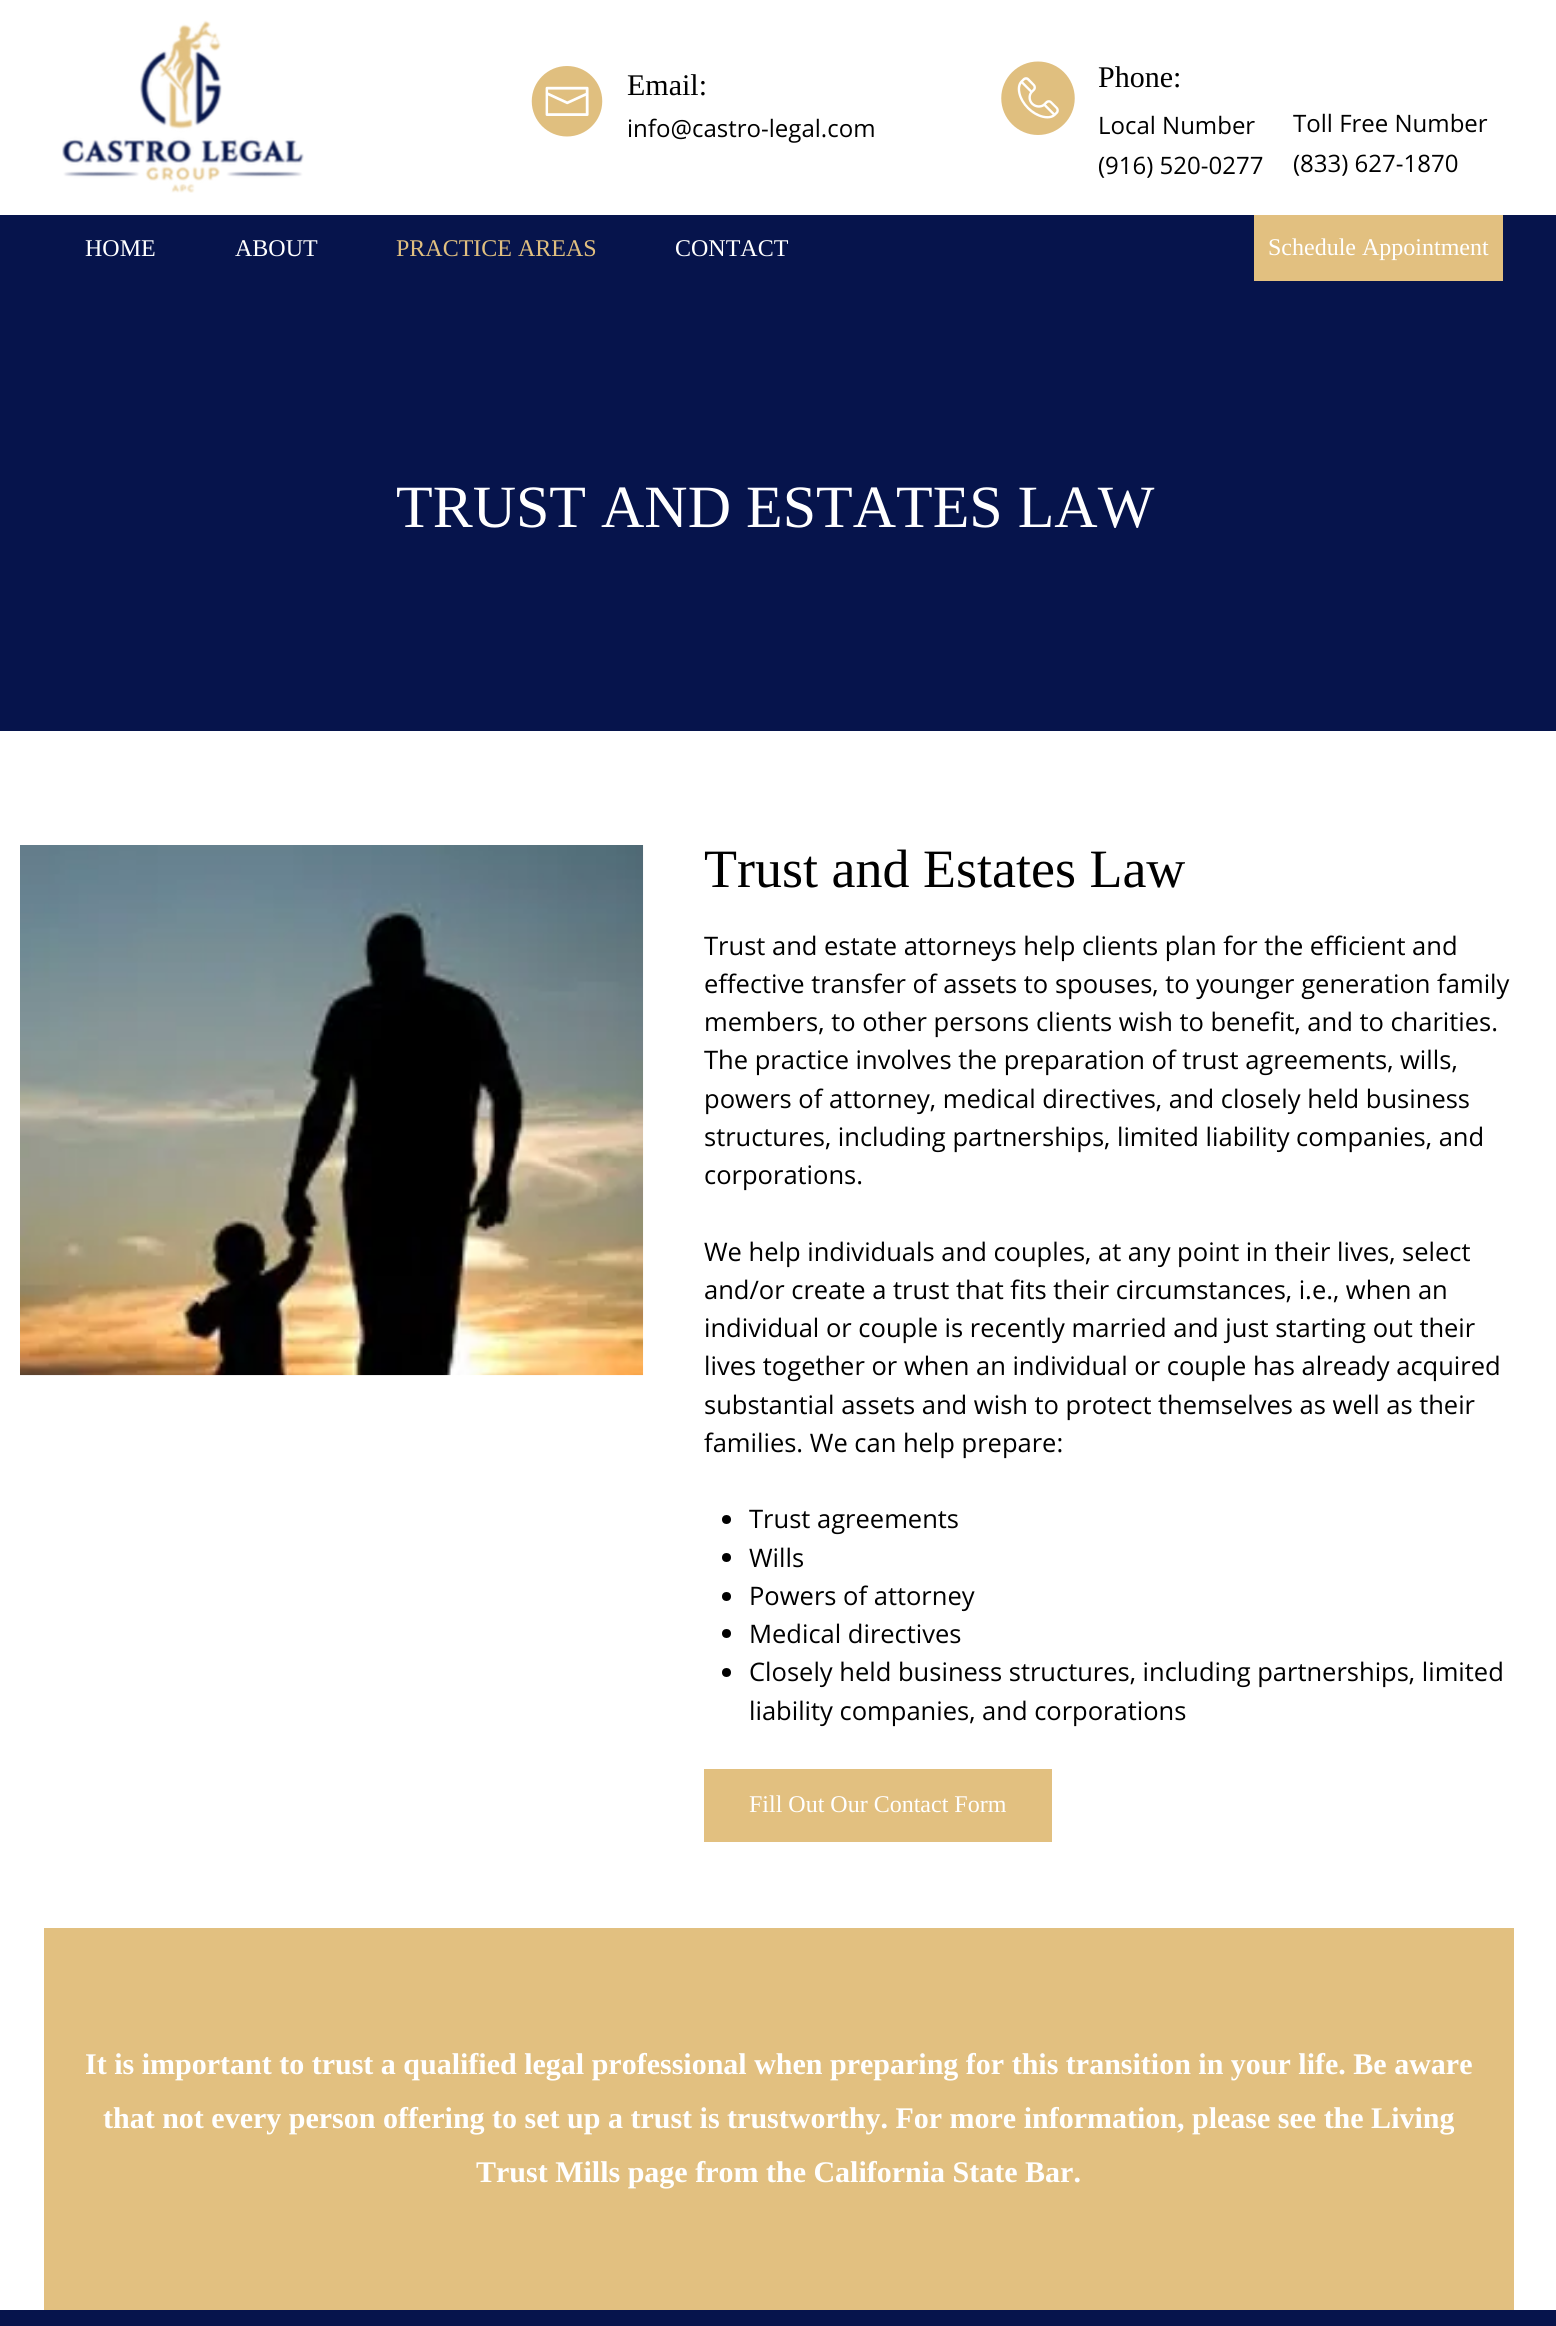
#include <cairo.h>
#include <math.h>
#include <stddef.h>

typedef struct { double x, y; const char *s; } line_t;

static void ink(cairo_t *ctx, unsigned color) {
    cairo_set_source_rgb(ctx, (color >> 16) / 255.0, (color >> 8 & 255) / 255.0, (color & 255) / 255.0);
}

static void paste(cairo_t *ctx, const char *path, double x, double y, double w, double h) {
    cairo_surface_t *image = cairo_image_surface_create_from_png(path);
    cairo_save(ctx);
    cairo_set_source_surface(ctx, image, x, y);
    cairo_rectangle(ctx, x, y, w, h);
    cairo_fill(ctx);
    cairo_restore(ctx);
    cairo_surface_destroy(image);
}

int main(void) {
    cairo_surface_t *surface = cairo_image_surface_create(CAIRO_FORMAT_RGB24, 1556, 2326);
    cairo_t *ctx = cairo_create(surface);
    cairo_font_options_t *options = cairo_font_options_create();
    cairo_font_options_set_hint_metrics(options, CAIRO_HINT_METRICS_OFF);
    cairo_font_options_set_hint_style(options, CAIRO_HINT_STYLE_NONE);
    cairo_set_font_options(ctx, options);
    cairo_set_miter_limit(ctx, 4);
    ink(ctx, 0xFFFFFF);
    cairo_paint(ctx);
    paste(ctx, "media/1.png", 62, 20, 242, 173);
    paste(ctx, "media/2.png", 531, 66, 72, 71);
    cairo_select_font_face(ctx, "Liberation Serif", CAIRO_FONT_SLANT_NORMAL, CAIRO_FONT_WEIGHT_NORMAL);
    cairo_set_font_size(ctx, 30);
    ink(ctx, 0x000000);
    cairo_move_to(ctx, 627, 95);
    cairo_show_text(ctx, "Email:");
    cairo_select_font_face(ctx, "Open Sans", CAIRO_FONT_SLANT_NORMAL, CAIRO_FONT_WEIGHT_NORMAL);
    cairo_set_font_size(ctx, 24);
    cairo_move_to(ctx, 627, 137);
    cairo_show_text(ctx, "info@castro-legal.com");
    paste(ctx, "media/3.png", 1001, 61, 74, 74);
    cairo_select_font_face(ctx, "Liberation Serif", CAIRO_FONT_SLANT_NORMAL, CAIRO_FONT_WEIGHT_NORMAL);
    cairo_set_font_size(ctx, 30);
    cairo_move_to(ctx, 1098, 87);
    cairo_show_text(ctx, "Phone:");
    cairo_select_font_face(ctx, "Open Sans", CAIRO_FONT_SLANT_NORMAL, CAIRO_FONT_WEIGHT_NORMAL);
    cairo_set_font_size(ctx, 24);
    {
        static const line_t items[] = {
            {1098, 134, "Local Number"},
            {1098, 174, "(916) 520-0277"},
            {1293, 132, "Toll Free Number"},
            {1293, 172, "(833) 627-1870"},
        };
        for (size_t i = 0; i < sizeof items / sizeof *items; i++) {
            cairo_move_to(ctx, items[i].x, items[i].y);
            cairo_show_text(ctx, items[i].s);
        }
    }
    ink(ctx, 0x06144C);
    cairo_rectangle(ctx, 0, 215, 1556, 516);
    cairo_fill(ctx);
    cairo_select_font_face(ctx, "Liberation Serif", CAIRO_FONT_SLANT_NORMAL, CAIRO_FONT_WEIGHT_NORMAL);
    ink(ctx, 0xFFFFFF);
    cairo_move_to(ctx, 85, 256);
    cairo_show_text(ctx, "HOME");
    cairo_move_to(ctx, 235, 256);
    cairo_show_text(ctx, "ABOUT");
    ink(ctx, 0xE0BF7F);
    cairo_move_to(ctx, 396, 256);
    cairo_show_text(ctx, "PRACTICE AREAS");
    ink(ctx, 0xFFFFFF);
    cairo_move_to(ctx, 675, 256);
    cairo_show_text(ctx, "CONTACT");
    ink(ctx, 0xE2C080);
    cairo_rectangle(ctx, 1254, 215, 249, 66);
    cairo_fill(ctx);
    ink(ctx, 0xFFFFFF);
    cairo_move_to(ctx, 1268, 255);
    cairo_show_text(ctx, "Schedule Appointment");
    cairo_set_font_size(ctx, 60);
    cairo_move_to(ctx, 396, 527);
    cairo_show_text(ctx, "TRUST AND ESTATES LAW");
    paste(ctx, "media/4.png", 20, 845, 624, 531);
    cairo_set_font_size(ctx, 54);
    ink(ctx, 0x000000);
    cairo_move_to(ctx, 704, 887);
    cairo_show_text(ctx, "Trust and Estates Law");
    cairo_select_font_face(ctx, "Open Sans", CAIRO_FONT_SLANT_NORMAL, CAIRO_FONT_WEIGHT_NORMAL);
    cairo_set_font_size(ctx, 25.5);
    {
        static const line_t items[] = {
            {704, 955, "Trust and estate attorneys help clients plan for the efficient and"},
            {704, 993, "effective transfer of assets to spouses, to younger generation family"},
            {704, 1031, "members, to other persons clients wish to benefit, and to charities."},
            {704, 1069, "The practice involves the preparation of trust agreements, wills,"},
            {704, 1108, "powers of attorney, medical directives, and closely held business"},
            {704, 1146, "structures, including partnerships, limited liability companies, and"},
            {704, 1184, "corporations."},
            {704, 1261, "We help individuals and couples, at any point in their lives, select"},
            {704, 1299, "and/or create a trust that fits their circumstances, i.e., when an"},
            {704, 1337, "individual or couple is recently married and just starting out their"},
            {704, 1375, "lives together or when an individual or couple has already acquired"},
            {704, 1414, "substantial assets and wish to protect themselves as well as their"},
            {704, 1452, "families. We can help prepare:"},
        };
        for (size_t i = 0; i < sizeof items / sizeof *items; i++) {
            cairo_move_to(ctx, items[i].x, items[i].y);
            cairo_show_text(ctx, items[i].s);
        }
    }
    cairo_new_path(ctx);
    cairo_arc(ctx, 726.5, 1519.5, 4.5, 0, 2 * M_PI);
    cairo_fill(ctx);
    cairo_move_to(ctx, 749, 1528);
    cairo_show_text(ctx, "Trust agreements");
    cairo_new_path(ctx);
    cairo_arc(ctx, 726.5, 1557.5, 4.5, 0, 2 * M_PI);
    cairo_fill(ctx);
    cairo_move_to(ctx, 749, 1567);
    cairo_show_text(ctx, "Wills");
    cairo_new_path(ctx);
    cairo_arc(ctx, 726.5, 1596.5, 4.5, 0, 2 * M_PI);
    cairo_fill(ctx);
    cairo_move_to(ctx, 749, 1605);
    cairo_show_text(ctx, "Powers of attorney");
    cairo_new_path(ctx);
    cairo_arc(ctx, 726.5, 1633.5, 4.5, 0, 2 * M_PI);
    cairo_fill(ctx);
    cairo_move_to(ctx, 749, 1643);
    cairo_show_text(ctx, "Medical directives");
    cairo_new_path(ctx);
    cairo_arc(ctx, 726.5, 1672.5, 4.5, 0, 2 * M_PI);
    cairo_fill(ctx);
    cairo_move_to(ctx, 749, 1681);
    cairo_show_text(ctx, "Closely held business structures, including partnerships, limited");
    cairo_move_to(ctx, 749, 1720);
    cairo_show_text(ctx, "liability companies, and corporations");
    ink(ctx, 0xE2C080);
    cairo_rectangle(ctx, 704, 1769, 348, 73);
    cairo_fill(ctx);
    cairo_select_font_face(ctx, "Liberation Serif", CAIRO_FONT_SLANT_NORMAL, CAIRO_FONT_WEIGHT_NORMAL);
    cairo_set_font_size(ctx, 24);
    ink(ctx, 0xFFFFFF);
    cairo_move_to(ctx, 749, 1812);
    cairo_show_text(ctx, "Fill Out Our Contact Form");
    ink(ctx, 0xE2C080);
    cairo_rectangle(ctx, 44, 1928, 1470, 382);
    cairo_fill(ctx);
    cairo_select_font_face(ctx, "Liberation Serif", CAIRO_FONT_SLANT_NORMAL, CAIRO_FONT_WEIGHT_BOLD);
    cairo_set_font_size(ctx, 30);
    ink(ctx, 0xFFFFFF);
    {
        static const line_t items[] = {
            {85, 2074, "It is important to trust a qualified legal professional when preparing for this transition in your life. Be aware"},
            {103, 2128, "that not every person offering to set up a trust is trustworthy. For more information, please see the Living"},
            {476, 2182, "Trust Mills page from the California State Bar."},
        };
        for (size_t i = 0; i < sizeof items / sizeof *items; i++) {
            cairo_move_to(ctx, items[i].x, items[i].y);
            cairo_show_text(ctx, items[i].s);
        }
    }
    ink(ctx, 0x06144C);
    cairo_rectangle(ctx, 0, 2310, 1556, 16);
    cairo_fill(ctx);
    cairo_surface_write_to_png(surface, "image.png");
    cairo_font_options_destroy(options);
    cairo_destroy(ctx);
    cairo_surface_destroy(surface);
    return 0;
}
